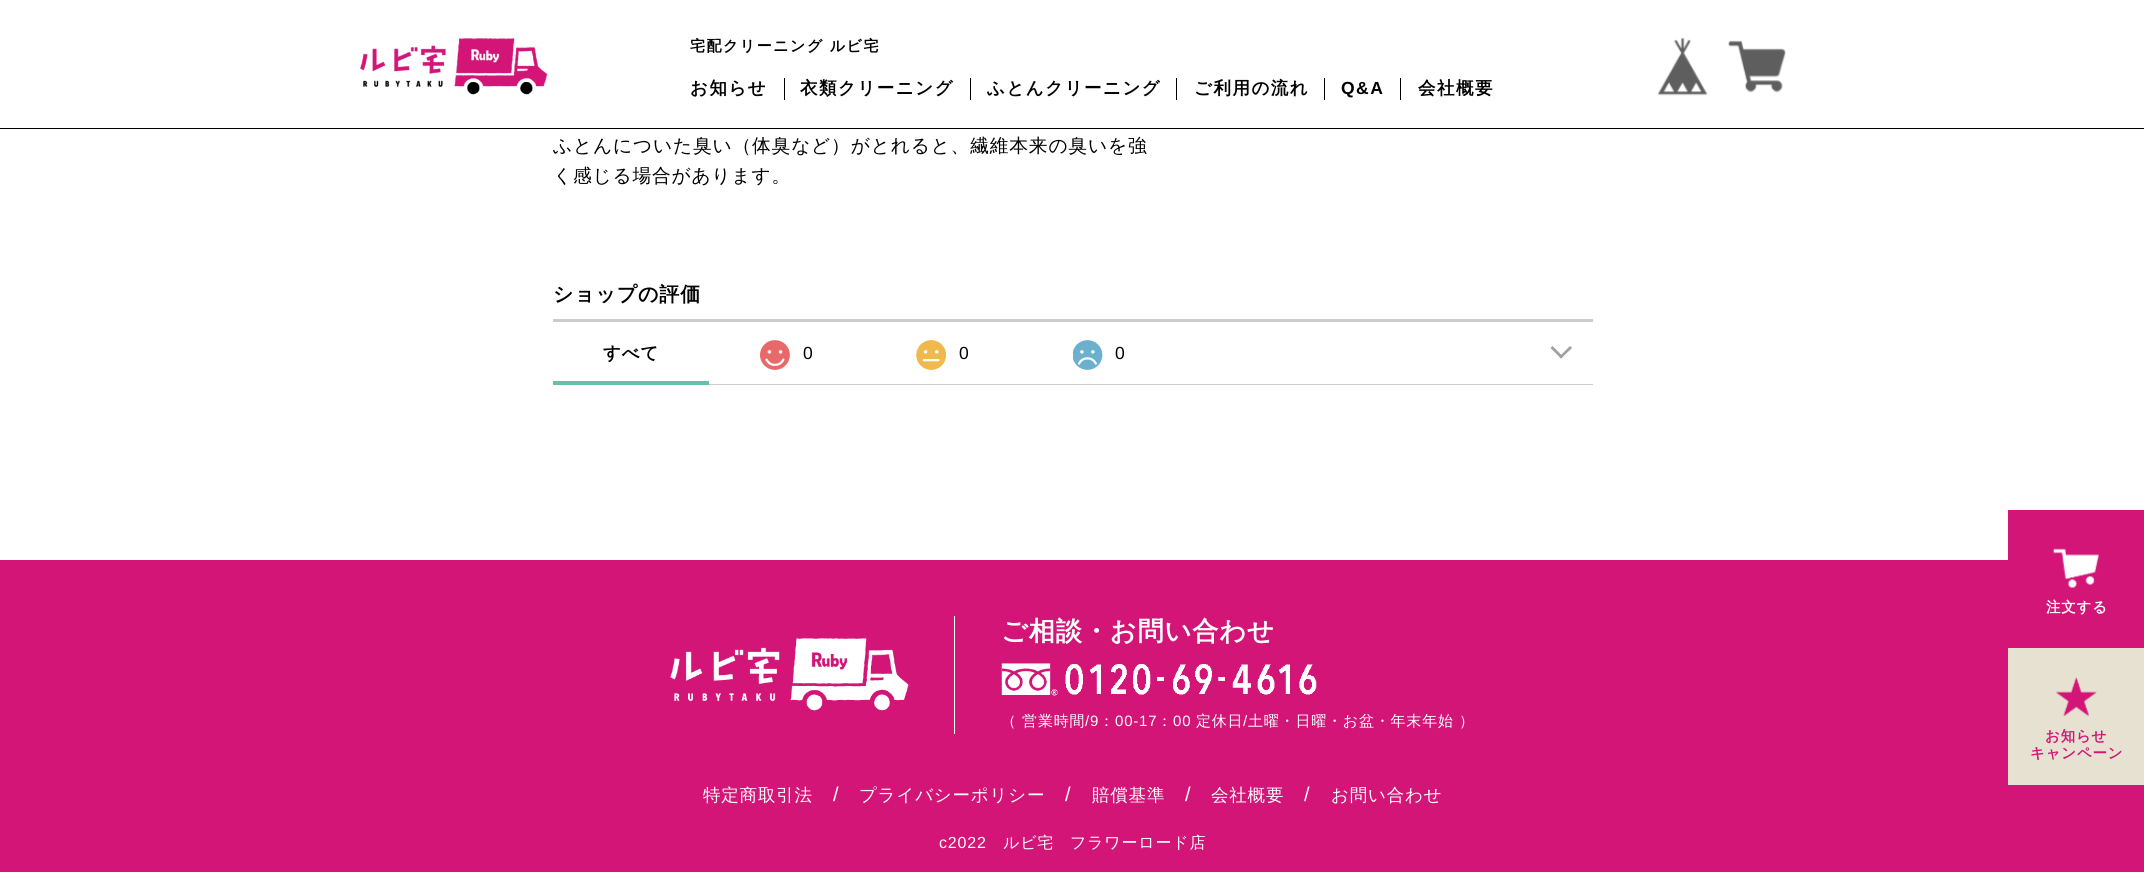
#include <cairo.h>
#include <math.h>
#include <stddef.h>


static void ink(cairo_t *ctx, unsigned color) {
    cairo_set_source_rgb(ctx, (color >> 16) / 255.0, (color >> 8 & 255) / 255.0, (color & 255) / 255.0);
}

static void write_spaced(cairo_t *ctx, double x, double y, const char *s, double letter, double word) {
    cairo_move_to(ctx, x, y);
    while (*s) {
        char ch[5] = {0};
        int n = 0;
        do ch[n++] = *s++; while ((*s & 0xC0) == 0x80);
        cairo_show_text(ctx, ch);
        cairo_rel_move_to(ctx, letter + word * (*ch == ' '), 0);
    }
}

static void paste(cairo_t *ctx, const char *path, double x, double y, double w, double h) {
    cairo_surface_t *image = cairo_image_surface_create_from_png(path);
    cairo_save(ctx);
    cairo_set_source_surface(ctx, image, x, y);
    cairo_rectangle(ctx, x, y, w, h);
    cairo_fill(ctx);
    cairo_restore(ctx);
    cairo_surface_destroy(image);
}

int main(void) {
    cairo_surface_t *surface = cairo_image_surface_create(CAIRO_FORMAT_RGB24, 2144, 872);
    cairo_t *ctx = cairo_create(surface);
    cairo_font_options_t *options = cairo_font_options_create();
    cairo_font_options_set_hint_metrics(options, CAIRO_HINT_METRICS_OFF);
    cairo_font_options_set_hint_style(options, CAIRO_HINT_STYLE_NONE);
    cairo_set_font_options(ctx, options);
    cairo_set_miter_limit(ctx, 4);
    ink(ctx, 0xFFFFFF);
    cairo_paint(ctx);
    ink(ctx, 0x000000);
    cairo_rectangle(ctx, 0, 128, 2144, 1);
    cairo_fill(ctx);
    paste(ctx, "media/1.png", 360, 38, 188, 57);
    cairo_select_font_face(ctx, "WenQuanYi Zen Hei", CAIRO_FONT_SLANT_NORMAL, CAIRO_FONT_WEIGHT_BOLD);
    cairo_set_font_size(ctx, 15);
    write_spaced(ctx, 690, 51, "宅配クリーニング ルビ宅", 1.5, 0);
    cairo_set_font_size(ctx, 17.5);
    write_spaced(ctx, 690, 94, "お知らせ", 1.5, 0);
    cairo_rectangle(ctx, 784, 78, 1, 22);
    cairo_fill(ctx);
    write_spaced(ctx, 800, 94, "衣類クリーニング", 1.5, 0);
    cairo_rectangle(ctx, 970, 78, 1, 22);
    cairo_fill(ctx);
    write_spaced(ctx, 987, 94, "ふとんクリーニング", 1.5, 0);
    cairo_rectangle(ctx, 1176, 78, 1, 22);
    cairo_fill(ctx);
    write_spaced(ctx, 1194, 94, "ご利用の流れ", 1.5, 0);
    cairo_rectangle(ctx, 1324, 78, 1, 22);
    cairo_fill(ctx);
    cairo_select_font_face(ctx, "Liberation Sans", CAIRO_FONT_SLANT_NORMAL, CAIRO_FONT_WEIGHT_BOLD);
    write_spaced(ctx, 1341, 94, "Q&A", 1.5, 0);
    cairo_rectangle(ctx, 1400, 78, 1, 22);
    cairo_fill(ctx);
    cairo_select_font_face(ctx, "WenQuanYi Zen Hei", CAIRO_FONT_SLANT_NORMAL, CAIRO_FONT_WEIGHT_BOLD);
    write_spaced(ctx, 1418, 94, "会社概要", 1.5, 0);
    paste(ctx, "media/2.png", 1657, 38, 51, 58);
    paste(ctx, "media/3.png", 1728, 40, 58, 53);
    cairo_select_font_face(ctx, "WenQuanYi Zen Hei Medium", CAIRO_FONT_SLANT_NORMAL, CAIRO_FONT_WEIGHT_NORMAL);
    cairo_set_font_size(ctx, 18.75);
    write_spaced(ctx, 553, 152, "ふとんについた臭い（体臭など）がとれると、繊維本来の臭いを強", 0.8, 0);
    write_spaced(ctx, 553, 182, "く感じる場合があります。", 0.8, 0);
    cairo_select_font_face(ctx, "WenQuanYi Zen Hei", CAIRO_FONT_SLANT_NORMAL, CAIRO_FONT_WEIGHT_BOLD);
    cairo_set_font_size(ctx, 20);
    write_spaced(ctx, 553, 301, "ショップの評価", 0.8, 0);
    ink(ctx, 0xCCCCCC);
    cairo_rectangle(ctx, 553, 319, 1040, 3);
    cairo_fill(ctx);
    cairo_rectangle(ctx, 709, 384, 884, 1);
    cairo_fill(ctx);
    cairo_set_font_size(ctx, 17.5);
    ink(ctx, 0x000000);
    write_spaced(ctx, 603, 359, "すべて", 0.8, 0);
    paste(ctx, "media/4.png", 760, 340, 30, 30);
    cairo_select_font_face(ctx, "Liberation Sans", CAIRO_FONT_SLANT_NORMAL, CAIRO_FONT_WEIGHT_NORMAL);
    write_spaced(ctx, 803, 359, "0", 0.8, 0);
    paste(ctx, "media/5.png", 916, 340, 30, 30);
    write_spaced(ctx, 959, 359, "0", 0.8, 0);
    paste(ctx, "media/6.png", 1073, 340, 30, 30);
    write_spaced(ctx, 1115, 359, "0", 0.8, 0);
    ink(ctx, 0x63C1AE);
    cairo_rectangle(ctx, 553, 381, 156, 4);
    cairo_fill(ctx);
    ink(ctx, 0xA0A0A0);
    cairo_new_path(ctx);
    cairo_move_to(ctx, 1570, 346);
    cairo_line_to(ctx, 1572, 348);
    cairo_line_to(ctx, 1561, 358.5);
    cairo_line_to(ctx, 1559.5, 356.5);
    cairo_close_path(ctx);
    cairo_fill(ctx);
    cairo_new_path(ctx);
    cairo_move_to(ctx, 1552.5, 346);
    cairo_line_to(ctx, 1563, 356.5);
    cairo_line_to(ctx, 1561, 358.5);
    cairo_line_to(ctx, 1550.5, 348);
    cairo_close_path(ctx);
    cairo_fill(ctx);
    ink(ctx, 0xD21577);
    cairo_rectangle(ctx, 0, 560, 2144, 312);
    cairo_fill(ctx);
    paste(ctx, "media/7.png", 670, 638, 239, 73);
    ink(ctx, 0xFFFFFF);
    cairo_rectangle(ctx, 954, 616, 1, 118);
    cairo_fill(ctx);
    cairo_select_font_face(ctx, "WenQuanYi Zen Hei", CAIRO_FONT_SLANT_NORMAL, CAIRO_FONT_WEIGHT_BOLD);
    cairo_set_font_size(ctx, 26.25);
    write_spaced(ctx, 1001, 640, "ご相談・お問い合わせ", 0.8, 0);
    paste(ctx, "media/8.png", 1001, 663, 316, 33);
    cairo_select_font_face(ctx, "WenQuanYi Zen Hei Medium", CAIRO_FONT_SLANT_NORMAL, CAIRO_FONT_WEIGHT_NORMAL);
    cairo_set_font_size(ctx, 15);
    write_spaced(ctx, 1001, 726, "（ 営業時間", 0.8, 0);
    cairo_select_font_face(ctx, "Liberation Sans", CAIRO_FONT_SLANT_NORMAL, CAIRO_FONT_WEIGHT_NORMAL);
    write_spaced(ctx, 1085, 726, "/9", 0.8, 0);
    cairo_select_font_face(ctx, "WenQuanYi Zen Hei Medium", CAIRO_FONT_SLANT_NORMAL, CAIRO_FONT_WEIGHT_NORMAL);
    write_spaced(ctx, 1099, 726, "：", 0.8, 0);
    cairo_select_font_face(ctx, "Liberation Sans", CAIRO_FONT_SLANT_NORMAL, CAIRO_FONT_WEIGHT_NORMAL);
    write_spaced(ctx, 1115, 726, "00-17", 0.8, 0);
    cairo_select_font_face(ctx, "WenQuanYi Zen Hei Medium", CAIRO_FONT_SLANT_NORMAL, CAIRO_FONT_WEIGHT_NORMAL);
    write_spaced(ctx, 1157, 726, "：", 0.8, 0);
    cairo_select_font_face(ctx, "Liberation Sans", CAIRO_FONT_SLANT_NORMAL, CAIRO_FONT_WEIGHT_NORMAL);
    write_spaced(ctx, 1173, 726, "00", 0.8, 0);
    cairo_select_font_face(ctx, "WenQuanYi Zen Hei Medium", CAIRO_FONT_SLANT_NORMAL, CAIRO_FONT_WEIGHT_NORMAL);
    write_spaced(ctx, 1196, 726, "定休日", 0.8, 0);
    cairo_select_font_face(ctx, "Liberation Sans", CAIRO_FONT_SLANT_NORMAL, CAIRO_FONT_WEIGHT_NORMAL);
    write_spaced(ctx, 1243, 726, "/", 0.8, 0);
    cairo_select_font_face(ctx, "WenQuanYi Zen Hei Medium", CAIRO_FONT_SLANT_NORMAL, CAIRO_FONT_WEIGHT_NORMAL);
    write_spaced(ctx, 1248, 726, "土曜・日曜・お盆・年末年始 ）", 0.8, 0);
    cairo_set_font_size(ctx, 17.5);
    write_spaced(ctx, 703, 801, "特定商取引法", 0.8, 0);
    cairo_select_font_face(ctx, "Liberation Sans", CAIRO_FONT_SLANT_NORMAL, CAIRO_FONT_WEIGHT_NORMAL);
    cairo_set_font_size(ctx, 20);
    write_spaced(ctx, 833, 801, "/", 0.8, 0);
    cairo_select_font_face(ctx, "WenQuanYi Zen Hei Medium", CAIRO_FONT_SLANT_NORMAL, CAIRO_FONT_WEIGHT_NORMAL);
    cairo_set_font_size(ctx, 17.5);
    write_spaced(ctx, 859, 801, "プライバシーポリシー", 0.8, 0);
    cairo_select_font_face(ctx, "Liberation Sans", CAIRO_FONT_SLANT_NORMAL, CAIRO_FONT_WEIGHT_NORMAL);
    cairo_set_font_size(ctx, 20);
    write_spaced(ctx, 1065, 801, "/", 0.8, 0);
    cairo_select_font_face(ctx, "WenQuanYi Zen Hei Medium", CAIRO_FONT_SLANT_NORMAL, CAIRO_FONT_WEIGHT_NORMAL);
    cairo_set_font_size(ctx, 17.5);
    write_spaced(ctx, 1092, 801, "賠償基準", 0.8, 0);
    cairo_select_font_face(ctx, "Liberation Sans", CAIRO_FONT_SLANT_NORMAL, CAIRO_FONT_WEIGHT_NORMAL);
    cairo_set_font_size(ctx, 20);
    write_spaced(ctx, 1185, 801, "/", 0.8, 0);
    cairo_select_font_face(ctx, "WenQuanYi Zen Hei Medium", CAIRO_FONT_SLANT_NORMAL, CAIRO_FONT_WEIGHT_NORMAL);
    cairo_set_font_size(ctx, 17.5);
    write_spaced(ctx, 1211, 801, "会社概要", 0.8, 0);
    cairo_select_font_face(ctx, "Liberation Sans", CAIRO_FONT_SLANT_NORMAL, CAIRO_FONT_WEIGHT_NORMAL);
    cairo_set_font_size(ctx, 20);
    write_spaced(ctx, 1304, 801, "/", 0.8, 0);
    cairo_select_font_face(ctx, "WenQuanYi Zen Hei Medium", CAIRO_FONT_SLANT_NORMAL, CAIRO_FONT_WEIGHT_NORMAL);
    cairo_set_font_size(ctx, 17.5);
    write_spaced(ctx, 1331, 801, "お問い合わせ", 0.8, 0);
    cairo_select_font_face(ctx, "Liberation Sans", CAIRO_FONT_SLANT_NORMAL, CAIRO_FONT_WEIGHT_NORMAL);
    cairo_set_font_size(ctx, 16);
    write_spaced(ctx, 939, 848, "c2022", 0.8, 0);
    cairo_select_font_face(ctx, "WenQuanYi Zen Hei Medium", CAIRO_FONT_SLANT_NORMAL, CAIRO_FONT_WEIGHT_NORMAL);
    write_spaced(ctx, 1003, 848, "ルビ宅", 0.8, 0);
    write_spaced(ctx, 1070, 848, "フラワーロード店", 0.8, 0);
    ink(ctx, 0xD21577);
    cairo_rectangle(ctx, 2008, 510, 136, 50);
    cairo_fill(ctx);
    paste(ctx, "media/9.png", 2053, 548, 46, 40);
    cairo_select_font_face(ctx, "WenQuanYi Zen Hei", CAIRO_FONT_SLANT_NORMAL, CAIRO_FONT_WEIGHT_BOLD);
    cairo_set_font_size(ctx, 14.5);
    ink(ctx, 0xFFFFFF);
    write_spaced(ctx, 2046, 612, "注文する", 0.8, 0);
    ink(ctx, 0xE6E1D1);
    cairo_rectangle(ctx, 2008, 648, 136, 137);
    cairo_fill(ctx);
    paste(ctx, "media/10.png", 2055, 677, 42, 40);
    ink(ctx, 0xD21577);
    write_spaced(ctx, 2045, 741, "お知らせ", 0.8, 0);
    write_spaced(ctx, 2030, 758, "キャンペーン", 0.8, 0);
    cairo_surface_write_to_png(surface, "image.png");
    cairo_font_options_destroy(options);
    cairo_destroy(ctx);
    cairo_surface_destroy(surface);
    return 0;
}
